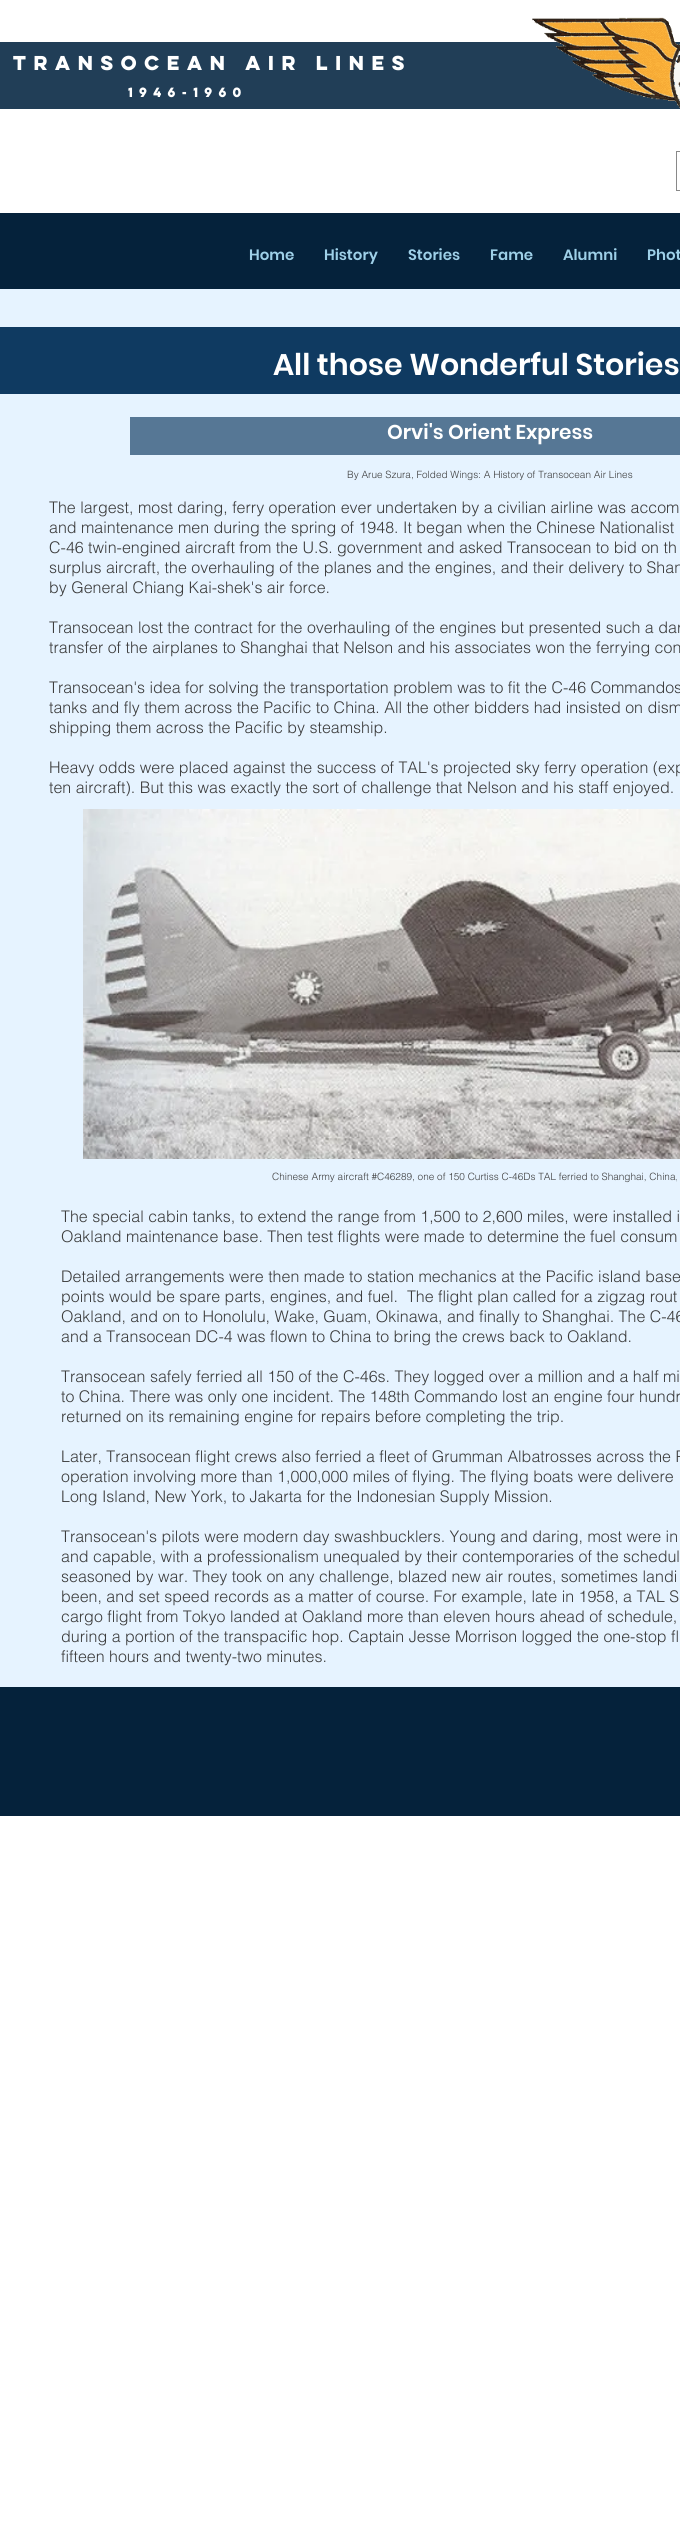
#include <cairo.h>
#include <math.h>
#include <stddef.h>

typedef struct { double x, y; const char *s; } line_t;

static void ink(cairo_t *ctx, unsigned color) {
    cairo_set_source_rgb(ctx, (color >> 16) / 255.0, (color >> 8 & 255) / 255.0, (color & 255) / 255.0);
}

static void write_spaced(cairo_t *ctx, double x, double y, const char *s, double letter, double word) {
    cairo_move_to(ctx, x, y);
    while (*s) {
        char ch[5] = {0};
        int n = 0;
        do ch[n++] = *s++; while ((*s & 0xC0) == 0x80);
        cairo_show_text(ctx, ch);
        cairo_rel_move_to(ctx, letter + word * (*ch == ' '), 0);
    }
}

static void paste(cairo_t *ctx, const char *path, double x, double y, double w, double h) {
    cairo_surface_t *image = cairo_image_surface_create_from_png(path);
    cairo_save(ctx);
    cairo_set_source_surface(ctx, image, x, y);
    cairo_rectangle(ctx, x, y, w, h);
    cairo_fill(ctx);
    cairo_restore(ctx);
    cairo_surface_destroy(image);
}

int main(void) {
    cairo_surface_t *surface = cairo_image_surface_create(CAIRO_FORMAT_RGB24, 680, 2522);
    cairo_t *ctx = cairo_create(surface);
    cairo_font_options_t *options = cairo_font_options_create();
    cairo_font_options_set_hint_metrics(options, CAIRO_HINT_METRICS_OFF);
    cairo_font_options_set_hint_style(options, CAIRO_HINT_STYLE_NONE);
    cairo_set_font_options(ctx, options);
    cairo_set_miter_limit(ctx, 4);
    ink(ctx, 0xFFFFFF);
    cairo_paint(ctx);
    ink(ctx, 0x213E57);
    cairo_rectangle(ctx, 0, 42, 680, 67);
    cairo_fill(ctx);
    paste(ctx, "media/1.png", 532, 17, 148, 91);
    cairo_select_font_face(ctx, "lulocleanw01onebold", CAIRO_FONT_SLANT_NORMAL, CAIRO_FONT_WEIGHT_BOLD);
    cairo_set_font_size(ctx, 18);
    ink(ctx, 0xFFFFFF);
    write_spaced(ctx, 13, 70, "Transocean Air Lines", 3.6, 0);
    cairo_set_font_size(ctx, 12);
    write_spaced(ctx, 128, 97, "1946-1960", 3.6, 0);
    cairo_rectangle(ctx, 676.5, 151.5, 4, 39);
    ink(ctx, 0x898989);
    cairo_set_line_width(ctx, 1);
    cairo_stroke(ctx);
    ink(ctx, 0x05223B);
    cairo_rectangle(ctx, 0, 213, 680, 76);
    cairo_fill(ctx);
    cairo_select_font_face(ctx, "Poppins SemiBold", CAIRO_FONT_SLANT_NORMAL, CAIRO_FONT_WEIGHT_NORMAL);
    cairo_set_font_size(ctx, 15);
    ink(ctx, 0x9ED0E8);
    {
        static const line_t items[] = {
            {249, 260, "Home"},
            {324, 260, "History"},
            {408, 260, "Stories"},
            {490, 260, "Fame"},
            {563, 260, "Alumni"},
            {647, 260, "Phot"},
        };
        for (size_t i = 0; i < sizeof items / sizeof *items; i++) {
            cairo_move_to(ctx, items[i].x, items[i].y);
            cairo_show_text(ctx, items[i].s);
        }
    }
    ink(ctx, 0xE6F3FF);
    cairo_rectangle(ctx, 0, 289, 680, 1398);
    cairo_fill(ctx);
    ink(ctx, 0x0F3A61);
    cairo_rectangle(ctx, 0, 327, 680, 67);
    cairo_fill(ctx);
    cairo_set_font_size(ctx, 30);
    ink(ctx, 0xFFFFFF);
    cairo_move_to(ctx, 273, 375);
    cairo_show_text(ctx, "All those Wonderful Stories");
    ink(ctx, 0x567795);
    cairo_rectangle(ctx, 130, 417, 550, 38);
    cairo_fill(ctx);
    cairo_set_font_size(ctx, 20);
    ink(ctx, 0xFFFFFF);
    cairo_move_to(ctx, 387, 439);
    cairo_show_text(ctx, "Orvi's Orient Express");
    cairo_select_font_face(ctx, "helvetica Light", CAIRO_FONT_SLANT_NORMAL, CAIRO_FONT_WEIGHT_NORMAL);
    cairo_set_font_size(ctx, 10);
    ink(ctx, 0x3B3B3B);
    cairo_move_to(ctx, 347, 478);
    cairo_show_text(ctx, "By Arue Szura, Folded Wings: A History of Transocean Air Lines");
    cairo_set_font_size(ctx, 16);
    {
        static const line_t items[] = {
            {49, 513, "The largest, most daring, ferry operation ever undertaken by a civilian airline was accom"},
            {49, 533, "and maintenance men during the spring of 1948. It began when the Chinese Nationalist"},
            {49, 553, "C-46 twin-engined aircraft from the U.S. government and asked Transocean to bid on th"},
            {49, 573, "surplus aircraft, the overhauling of the planes and the engines, and their delivery to Shan"},
            {49, 593, "by General Chiang Kai-shek's air force."},
            {49, 633, "Transocean lost the contract for the overhauling of the engines but presented such a dar"},
            {49, 653, "transfer of the airplanes to Shanghai that Nelson and his associates won the ferrying con"},
            {49, 693, "Transocean's idea for solving the transportation problem was to fit the C-46 Commandos"},
            {49, 713, "tanks and fly them across the Pacific to China. All the other bidders had insisted on dism"},
            {49, 733, "shipping them across the Pacific by steamship."},
            {49, 773, "Heavy odds were placed against the success of TAL's projected sky ferry operation (exp"},
            {49, 793, "ten aircraft). But this was exactly the sort of challenge that Nelson and his staff enjoyed."},
        };
        for (size_t i = 0; i < sizeof items / sizeof *items; i++) {
            cairo_move_to(ctx, items[i].x, items[i].y);
            cairo_show_text(ctx, items[i].s);
        }
    }
    paste(ctx, "media/2.png", 83, 809, 597, 350);
    cairo_set_font_size(ctx, 10);
    cairo_move_to(ctx, 272, 1180);
    cairo_show_text(ctx, "Chinese Army aircraft #C46289, one of 150 Curtiss C-46Ds TAL ferried to Shanghai, China,");
    cairo_set_font_size(ctx, 16);
    {
        static const line_t items[] = {
            {61, 1222, "The special cabin tanks, to extend the range from 1,500 to 2,600 miles, were installed i"},
            {61, 1242, "Oakland maintenance base. Then test flights were made to determine the fuel consum"},
            {61, 1282, "Detailed arrangements were then made to station mechanics at the Pacific island base"},
            {61, 1302, "points would be spare parts, engines, and fuel.  The flight plan called for a zigzag rout"},
            {61, 1322, "Oakland, and on to Honolulu, Wake, Guam, Okinawa, and finally to Shanghai. The C-46"},
            {61, 1342, "and a Transocean DC-4 was flown to China to bring the crews back to Oakland."},
            {61, 1382, "Transocean safely ferried all 150 of the C-46s. They logged over a million and a half mi"},
            {61, 1402, "to China. There was only one incident. The 148th Commando lost an engine four hundr"},
            {61, 1422, "returned on its remaining engine for repairs before completing the trip."},
            {61, 1462, "Later, Transocean flight crews also ferried a fleet of Grumman Albatrosses across the P"},
            {61, 1482, "operation involving more than 1,000,000 miles of flying. The flying boats were delivere"},
            {61, 1502, "Long Island, New York, to Jakarta for the Indonesian Supply Mission."},
            {61, 1542, "Transocean's pilots were modern day swashbucklers. Young and daring, most were in"},
            {61, 1562, "and capable, with a professionalism unequaled by their contemporaries of the schedul"},
            {61, 1582, "seasoned by war. They took on any challenge, blazed new air routes, sometimes landi"},
            {61, 1602, "been, and set speed records as a matter of course. For example, late in 1958, a TAL S"},
            {61, 1622, "cargo flight from Tokyo landed at Oakland more than eleven hours ahead of schedule,"},
            {61, 1642, "during a portion of the transpacific hop. Captain Jesse Morrison logged the one-stop fl"},
            {61, 1662, "fifteen hours and twenty-two minutes."},
        };
        for (size_t i = 0; i < sizeof items / sizeof *items; i++) {
            cairo_move_to(ctx, items[i].x, items[i].y);
            cairo_show_text(ctx, items[i].s);
        }
    }
    ink(ctx, 0x05223B);
    cairo_rectangle(ctx, 0, 1687, 680, 129);
    cairo_fill(ctx);
    cairo_surface_write_to_png(surface, "image.png");
    cairo_font_options_destroy(options);
    cairo_destroy(ctx);
    cairo_surface_destroy(surface);
    return 0;
}
